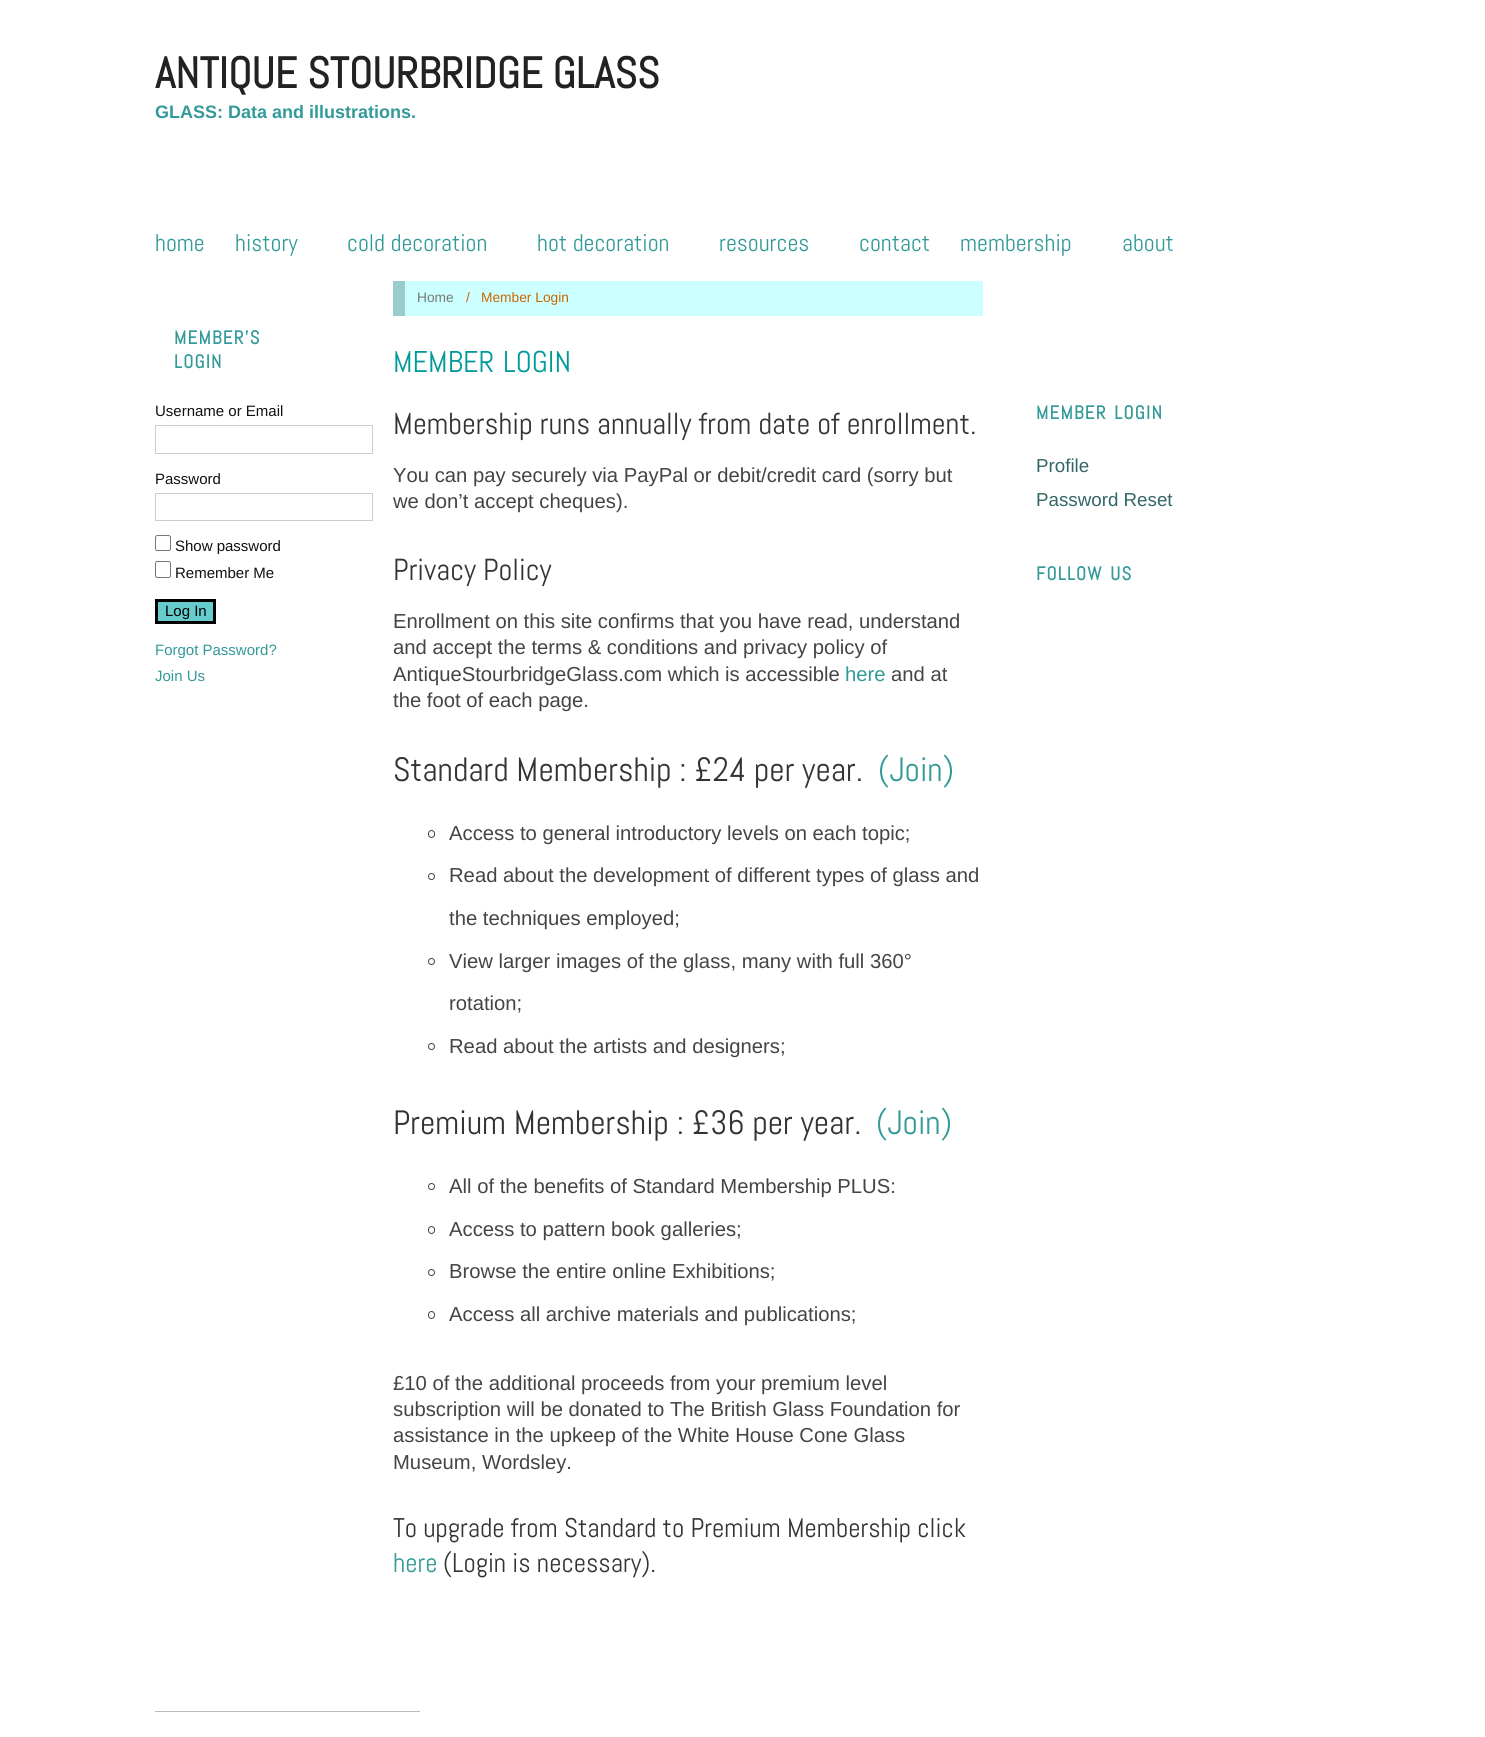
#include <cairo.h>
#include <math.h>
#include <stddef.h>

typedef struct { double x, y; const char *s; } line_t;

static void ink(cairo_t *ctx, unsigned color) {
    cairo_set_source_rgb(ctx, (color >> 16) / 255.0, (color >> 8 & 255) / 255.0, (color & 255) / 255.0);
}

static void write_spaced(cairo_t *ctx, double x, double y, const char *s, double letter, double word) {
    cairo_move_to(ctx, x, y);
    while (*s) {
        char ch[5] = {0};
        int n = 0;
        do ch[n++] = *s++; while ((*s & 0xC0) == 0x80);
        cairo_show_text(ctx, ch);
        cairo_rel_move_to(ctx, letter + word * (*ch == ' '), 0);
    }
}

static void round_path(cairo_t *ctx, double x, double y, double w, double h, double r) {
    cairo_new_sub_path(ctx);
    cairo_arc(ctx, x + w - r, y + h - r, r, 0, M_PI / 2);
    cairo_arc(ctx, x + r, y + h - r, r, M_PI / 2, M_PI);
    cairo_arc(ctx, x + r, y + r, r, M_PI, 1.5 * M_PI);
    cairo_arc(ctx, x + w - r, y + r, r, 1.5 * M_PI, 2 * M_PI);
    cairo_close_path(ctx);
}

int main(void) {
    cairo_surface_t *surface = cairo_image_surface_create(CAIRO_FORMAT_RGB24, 1485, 1737);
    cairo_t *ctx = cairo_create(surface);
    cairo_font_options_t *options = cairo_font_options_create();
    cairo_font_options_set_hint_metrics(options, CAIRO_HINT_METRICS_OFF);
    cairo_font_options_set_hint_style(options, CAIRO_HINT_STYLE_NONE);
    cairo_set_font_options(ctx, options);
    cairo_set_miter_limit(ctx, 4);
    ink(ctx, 0xFFFFFF);
    cairo_paint(ctx);
    cairo_select_font_face(ctx, "Abel", CAIRO_FONT_SLANT_NORMAL, CAIRO_FONT_WEIGHT_BOLD);
    cairo_set_font_size(ctx, 43.6);
    ink(ctx, 0x222222);
    cairo_move_to(ctx, 155, 88);
    cairo_show_text(ctx, "ANTIQUE STOURBRIDGE GLASS");
    cairo_select_font_face(ctx, "Liberation Sans", CAIRO_FONT_SLANT_NORMAL, CAIRO_FONT_WEIGHT_BOLD);
    cairo_set_font_size(ctx, 18);
    ink(ctx, 0x339999);
    cairo_move_to(ctx, 155, 118);
    cairo_show_text(ctx, "GLASS: Data and illustrations.");
    cairo_select_font_face(ctx, "Abel", CAIRO_FONT_SLANT_NORMAL, CAIRO_FONT_WEIGHT_NORMAL);
    cairo_set_font_size(ctx, 24);
    {
        static const line_t items[] = {
            {155, 251, "home"},
            {235, 251, "history"},
            {347, 251, "cold decoration"},
            {537, 251, "hot decoration"},
            {719, 251, "resources"},
            {859, 251, "contact"},
            {960, 251, "membership"},
            {1122, 251, "about"},
        };
        for (size_t i = 0; i < sizeof items / sizeof *items; i++) {
            cairo_move_to(ctx, items[i].x, items[i].y);
            cairo_show_text(ctx, items[i].s);
        }
    }
    cairo_select_font_face(ctx, "Abel", CAIRO_FONT_SLANT_NORMAL, CAIRO_FONT_WEIGHT_BOLD);
    cairo_set_font_size(ctx, 18.75);
    write_spaced(ctx, 174, 344, "MEMBER’S", 1.25, 0);
    write_spaced(ctx, 174, 368, "LOGIN", 1.25, 0);
    cairo_select_font_face(ctx, "Liberation Sans", CAIRO_FONT_SLANT_NORMAL, CAIRO_FONT_WEIGHT_NORMAL);
    cairo_set_font_size(ctx, 15);
    ink(ctx, 0x111111);
    cairo_move_to(ctx, 155, 416);
    cairo_show_text(ctx, "Username or Email");
    cairo_rectangle(ctx, 155.5, 425.5, 217, 28);
    ink(ctx, 0xCCCCCC);
    cairo_set_line_width(ctx, 1);
    cairo_stroke(ctx);
    ink(ctx, 0x111111);
    cairo_move_to(ctx, 155, 484);
    cairo_show_text(ctx, "Password");
    cairo_rectangle(ctx, 155.5, 493.5, 217, 27);
    ink(ctx, 0xCCCCCC);
    cairo_stroke(ctx);
    round_path(ctx, 155.5, 535.5, 15, 15, 2);
    ink(ctx, 0x767676);
    cairo_stroke(ctx);
    ink(ctx, 0x111111);
    cairo_move_to(ctx, 175, 551);
    cairo_show_text(ctx, "Show password");
    round_path(ctx, 155.5, 561.5, 15, 16, 2);
    ink(ctx, 0x767676);
    cairo_stroke(ctx);
    ink(ctx, 0x111111);
    cairo_move_to(ctx, 175, 578);
    cairo_show_text(ctx, "Remember Me");
    ink(ctx, 0x66CCCC);
    cairo_rectangle(ctx, 156.5, 600.5, 58, 22);
    cairo_fill_preserve(ctx);
    ink(ctx, 0x000000);
    cairo_set_line_width(ctx, 3);
    cairo_stroke(ctx);
    cairo_move_to(ctx, 165, 616);
    cairo_show_text(ctx, "Log In");
    ink(ctx, 0x339999);
    cairo_move_to(ctx, 155, 655);
    cairo_show_text(ctx, "Forgot Password?");
    cairo_move_to(ctx, 155, 681);
    cairo_show_text(ctx, "Join Us");
    ink(ctx, 0xCCFFFF);
    cairo_rectangle(ctx, 405, 281, 578, 35);
    cairo_fill(ctx);
    ink(ctx, 0x99CCCC);
    cairo_rectangle(ctx, 393, 281, 12, 35);
    cairo_fill(ctx);
    cairo_set_font_size(ctx, 13.75);
    ink(ctx, 0x777777);
    cairo_move_to(ctx, 417, 302);
    cairo_show_text(ctx, "Home");
    ink(ctx, 0xCC6600);
    cairo_move_to(ctx, 466, 302);
    cairo_show_text(ctx, "/");
    cairo_move_to(ctx, 481, 302);
    cairo_show_text(ctx, "Member Login");
    cairo_select_font_face(ctx, "Abel", CAIRO_FONT_SLANT_NORMAL, CAIRO_FONT_WEIGHT_NORMAL);
    cairo_set_font_size(ctx, 30);
    ink(ctx, 0x009999);
    write_spaced(ctx, 393, 372, "MEMBER LOGIN", 0, 2);
    cairo_set_font_size(ctx, 30.4);
    ink(ctx, 0x333333);
    cairo_move_to(ctx, 393, 434);
    cairo_show_text(ctx, "Membership runs annually from date of enrollment.");
    cairo_select_font_face(ctx, "Liberation Sans", CAIRO_FONT_SLANT_NORMAL, CAIRO_FONT_WEIGHT_NORMAL);
    cairo_set_font_size(ctx, 20.25);
    ink(ctx, 0x444444);
    cairo_move_to(ctx, 393, 482);
    cairo_show_text(ctx, "You can pay securely via PayPal or debit/credit card (sorry but");
    cairo_move_to(ctx, 393, 508);
    cairo_show_text(ctx, "we don’t accept cheques).");
    cairo_select_font_face(ctx, "Abel", CAIRO_FONT_SLANT_NORMAL, CAIRO_FONT_WEIGHT_NORMAL);
    cairo_set_font_size(ctx, 30.4);
    ink(ctx, 0x333333);
    cairo_move_to(ctx, 393, 580);
    cairo_show_text(ctx, "Privacy Policy");
    cairo_select_font_face(ctx, "Liberation Sans", CAIRO_FONT_SLANT_NORMAL, CAIRO_FONT_WEIGHT_NORMAL);
    cairo_set_font_size(ctx, 20.25);
    ink(ctx, 0x444444);
    {
        static const line_t items[] = {
            {393, 628, "Enrollment on this site confirms that you have read, understand"},
            {393, 654, "and accept the terms & conditions and privacy policy of"},
            {393, 681, "AntiqueStourbridgeGlass.com which is accessible"},
        };
        for (size_t i = 0; i < sizeof items / sizeof *items; i++) {
            cairo_move_to(ctx, items[i].x, items[i].y);
            cairo_show_text(ctx, items[i].s);
        }
    }
    ink(ctx, 0x339999);
    cairo_move_to(ctx, 845, 681);
    cairo_show_text(ctx, "here");
    ink(ctx, 0x444444);
    cairo_move_to(ctx, 891, 681);
    cairo_show_text(ctx, "and at");
    cairo_move_to(ctx, 393, 707);
    cairo_show_text(ctx, "the foot of each page.");
    cairo_select_font_face(ctx, "Abel", CAIRO_FONT_SLANT_NORMAL, CAIRO_FONT_WEIGHT_NORMAL);
    cairo_set_font_size(ctx, 33.75);
    ink(ctx, 0x333333);
    cairo_move_to(ctx, 393, 781);
    cairo_show_text(ctx, "Standard Membership : £24 per year.");
    ink(ctx, 0x339999);
    cairo_move_to(ctx, 878, 781);
    cairo_show_text(ctx, "(Join)");
    round_path(ctx, 428.5, 830.5, 6, 7, 3);
    ink(ctx, 0x444444);
    cairo_set_line_width(ctx, 1);
    cairo_stroke(ctx);
    cairo_select_font_face(ctx, "Liberation Sans", CAIRO_FONT_SLANT_NORMAL, CAIRO_FONT_WEIGHT_NORMAL);
    cairo_set_font_size(ctx, 20.25);
    cairo_move_to(ctx, 449, 840);
    cairo_show_text(ctx, "Access to general introductory levels on each topic;");
    cairo_new_path(ctx);
    cairo_arc(ctx, 431.5, 876.5, 3, 0, 2 * M_PI);
    cairo_stroke(ctx);
    cairo_move_to(ctx, 449, 882);
    cairo_show_text(ctx, "Read about the development of different types of glass and");
    cairo_move_to(ctx, 449, 925);
    cairo_show_text(ctx, "the techniques employed;");
    cairo_new_path(ctx);
    cairo_arc(ctx, 431.5, 961.5, 3, 0, 2 * M_PI);
    cairo_stroke(ctx);
    cairo_move_to(ctx, 449, 968);
    cairo_show_text(ctx, "View larger images of the glass, many with full 360°");
    cairo_move_to(ctx, 449, 1010);
    cairo_show_text(ctx, "rotation;");
    cairo_new_path(ctx);
    cairo_arc(ctx, 431.5, 1046.5, 3, 0, 2 * M_PI);
    cairo_stroke(ctx);
    cairo_move_to(ctx, 449, 1053);
    cairo_show_text(ctx, "Read about the artists and designers;");
    cairo_select_font_face(ctx, "Abel", CAIRO_FONT_SLANT_NORMAL, CAIRO_FONT_WEIGHT_NORMAL);
    cairo_set_font_size(ctx, 33.75);
    ink(ctx, 0x333333);
    cairo_move_to(ctx, 393, 1134);
    cairo_show_text(ctx, "Premium Membership : £36 per year.");
    ink(ctx, 0x339999);
    cairo_move_to(ctx, 876, 1134);
    cairo_show_text(ctx, "(Join)");
    cairo_new_path(ctx);
    cairo_arc(ctx, 431.5, 1186.5, 3, 0, 2 * M_PI);
    ink(ctx, 0x444444);
    cairo_stroke(ctx);
    cairo_select_font_face(ctx, "Liberation Sans", CAIRO_FONT_SLANT_NORMAL, CAIRO_FONT_WEIGHT_NORMAL);
    cairo_set_font_size(ctx, 20.25);
    cairo_move_to(ctx, 449, 1193);
    cairo_show_text(ctx, "All of the benefits of Standard Membership PLUS:");
    round_path(ctx, 428.5, 1226.5, 6, 7, 3);
    cairo_stroke(ctx);
    cairo_move_to(ctx, 449, 1236);
    cairo_show_text(ctx, "Access to pattern book galleries;");
    cairo_new_path(ctx);
    cairo_arc(ctx, 431.5, 1272.5, 3, 0, 2 * M_PI);
    cairo_stroke(ctx);
    cairo_move_to(ctx, 449, 1278);
    cairo_show_text(ctx, "Browse the entire online Exhibitions;");
    round_path(ctx, 428.5, 1311.5, 6, 7, 3);
    cairo_stroke(ctx);
    {
        static const line_t items[] = {
            {449, 1321, "Access all archive materials and publications;"},
            {393, 1390, "£10 of the additional proceeds from your premium level"},
            {393, 1416, "subscription will be donated to The British Glass Foundation for"},
            {393, 1442, "assistance in the upkeep of the White House Cone Glass"},
            {393, 1469, "Museum, Wordsley."},
        };
        for (size_t i = 0; i < sizeof items / sizeof *items; i++) {
            cairo_move_to(ctx, items[i].x, items[i].y);
            cairo_show_text(ctx, items[i].s);
        }
    }
    cairo_select_font_face(ctx, "Abel", CAIRO_FONT_SLANT_NORMAL, CAIRO_FONT_WEIGHT_NORMAL);
    cairo_set_font_size(ctx, 27);
    ink(ctx, 0x333333);
    cairo_move_to(ctx, 393, 1537);
    cairo_show_text(ctx, "To upgrade from Standard to Premium Membership click");
    ink(ctx, 0x339999);
    cairo_move_to(ctx, 393, 1572);
    cairo_show_text(ctx, "here");
    ink(ctx, 0x333333);
    cairo_move_to(ctx, 443, 1572);
    cairo_show_text(ctx, "(Login is necessary).");
    cairo_select_font_face(ctx, "Abel", CAIRO_FONT_SLANT_NORMAL, CAIRO_FONT_WEIGHT_BOLD);
    cairo_set_font_size(ctx, 18.75);
    ink(ctx, 0x339999);
    write_spaced(ctx, 1036, 419, "MEMBER LOGIN", 1.25, 2);
    cairo_select_font_face(ctx, "Liberation Sans", CAIRO_FONT_SLANT_NORMAL, CAIRO_FONT_WEIGHT_NORMAL);
    ink(ctx, 0x336666);
    cairo_move_to(ctx, 1036, 472);
    cairo_show_text(ctx, "Profile");
    cairo_move_to(ctx, 1036, 506);
    cairo_show_text(ctx, "Password Reset");
    cairo_select_font_face(ctx, "Abel", CAIRO_FONT_SLANT_NORMAL, CAIRO_FONT_WEIGHT_BOLD);
    ink(ctx, 0x339999);
    write_spaced(ctx, 1036, 580, "FOLLOW US", 1.25, 2);
    ink(ctx, 0xBBBBBB);
    cairo_rectangle(ctx, 155, 1711, 265, 1);
    cairo_fill(ctx);
    cairo_surface_write_to_png(surface, "image.png");
    cairo_font_options_destroy(options);
    cairo_destroy(ctx);
    cairo_surface_destroy(surface);
    return 0;
}
